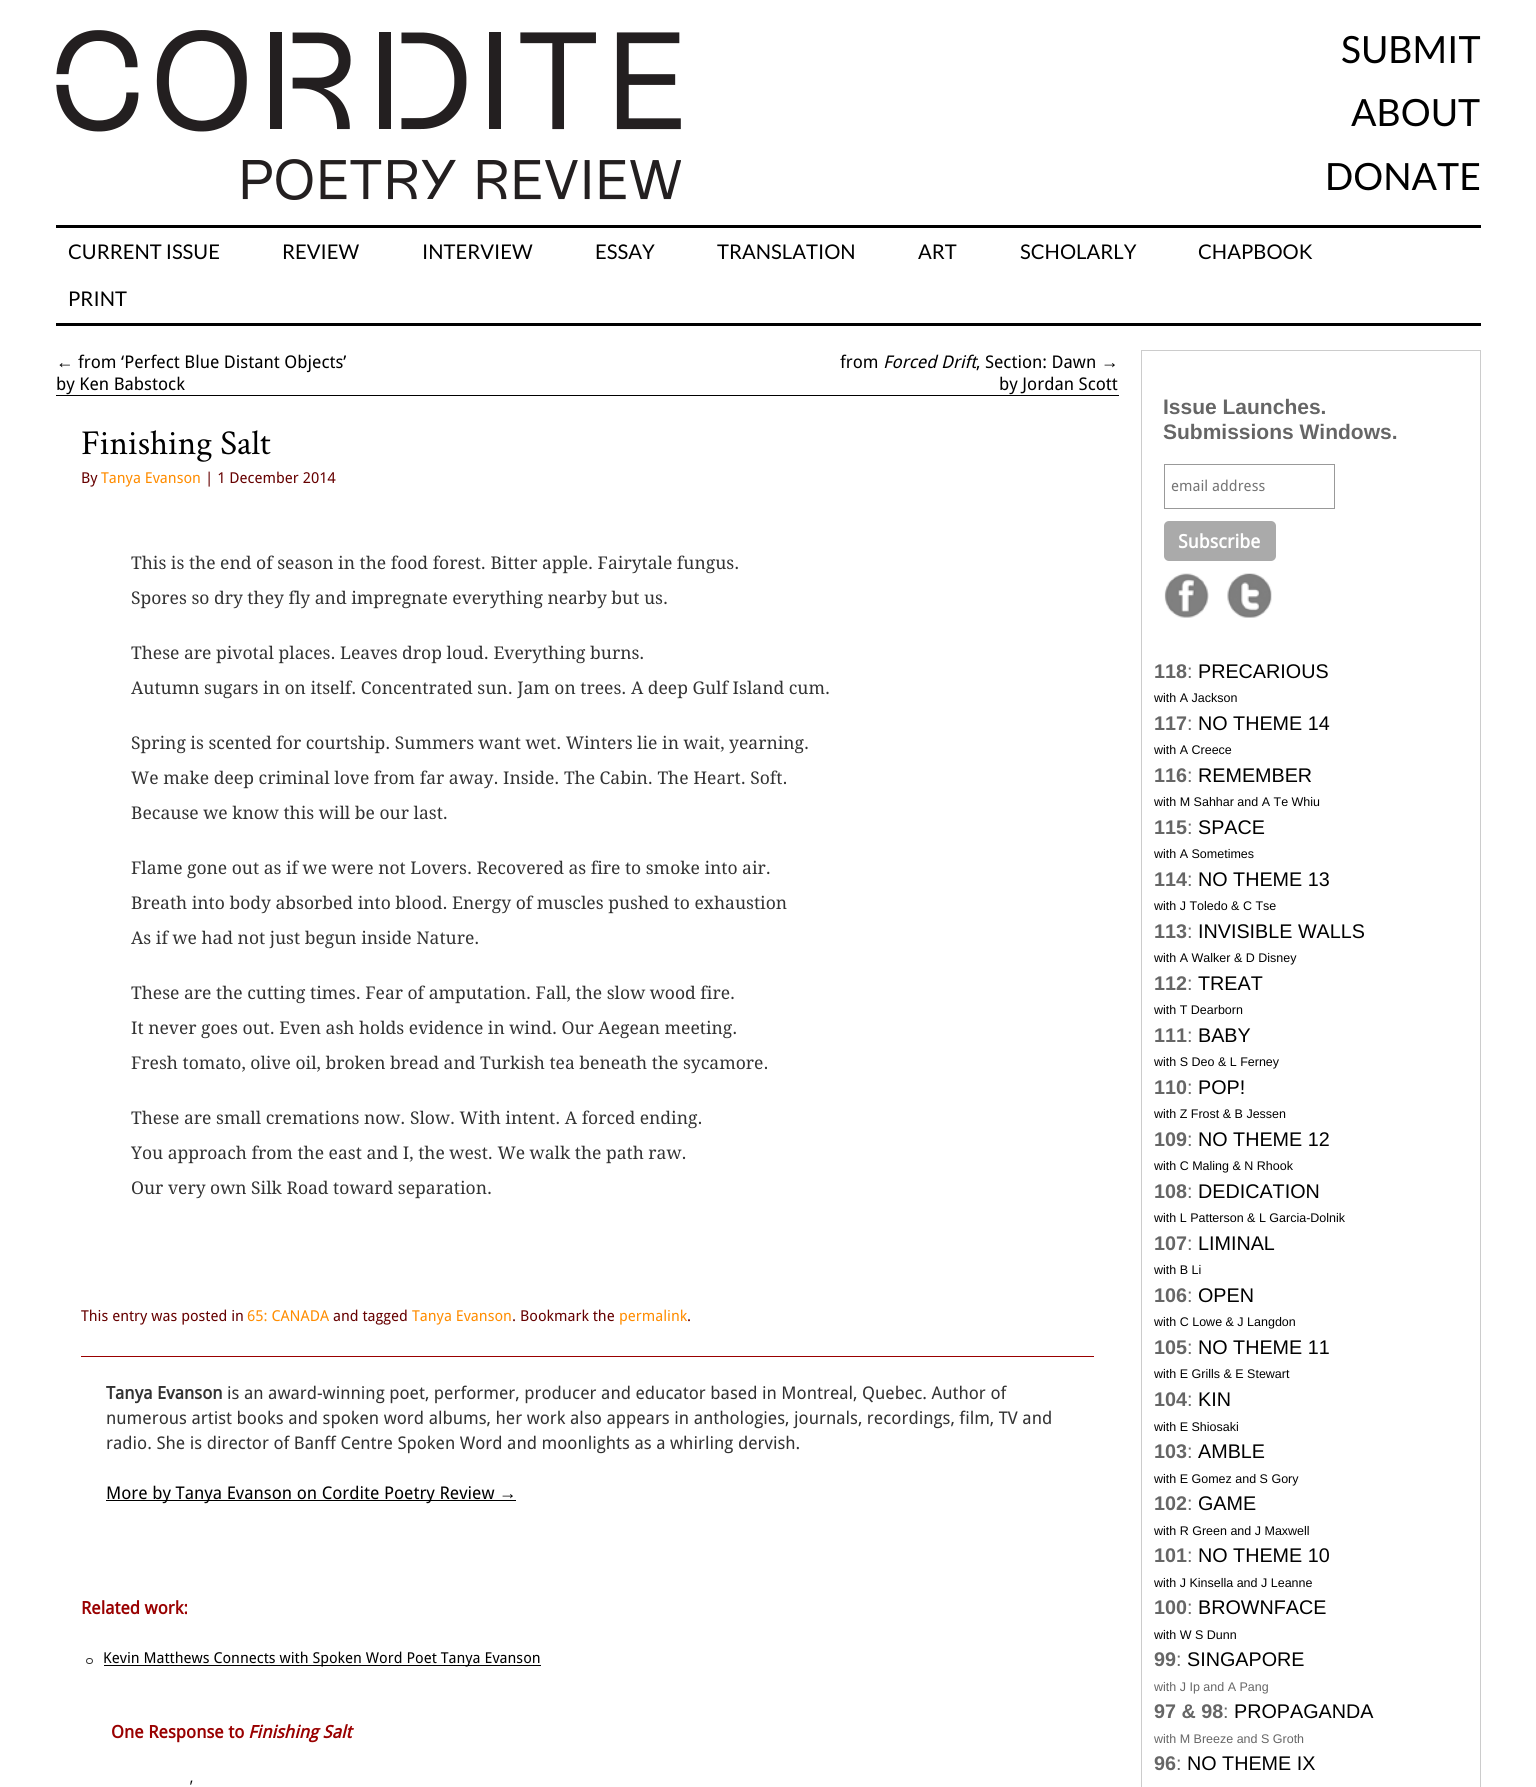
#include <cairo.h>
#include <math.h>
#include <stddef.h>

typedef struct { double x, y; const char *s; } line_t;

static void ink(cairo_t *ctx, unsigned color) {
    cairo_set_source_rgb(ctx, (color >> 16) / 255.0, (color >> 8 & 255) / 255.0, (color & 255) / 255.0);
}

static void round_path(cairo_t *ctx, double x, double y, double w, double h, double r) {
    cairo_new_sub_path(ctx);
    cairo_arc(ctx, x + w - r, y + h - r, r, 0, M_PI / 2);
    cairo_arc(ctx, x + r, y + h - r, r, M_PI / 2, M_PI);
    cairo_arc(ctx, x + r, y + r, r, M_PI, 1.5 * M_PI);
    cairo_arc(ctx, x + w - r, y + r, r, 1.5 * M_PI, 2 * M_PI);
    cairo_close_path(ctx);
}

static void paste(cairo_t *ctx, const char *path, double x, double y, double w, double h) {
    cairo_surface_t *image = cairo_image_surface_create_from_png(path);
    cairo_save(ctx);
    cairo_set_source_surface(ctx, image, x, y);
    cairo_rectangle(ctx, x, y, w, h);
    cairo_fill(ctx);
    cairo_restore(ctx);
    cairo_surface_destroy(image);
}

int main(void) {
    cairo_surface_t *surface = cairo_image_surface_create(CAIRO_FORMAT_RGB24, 1536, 1787);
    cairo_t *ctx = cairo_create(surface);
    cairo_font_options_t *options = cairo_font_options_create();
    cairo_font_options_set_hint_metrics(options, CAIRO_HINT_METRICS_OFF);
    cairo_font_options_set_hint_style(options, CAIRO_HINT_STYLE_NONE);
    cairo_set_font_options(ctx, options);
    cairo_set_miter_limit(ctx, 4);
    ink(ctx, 0xFFFFFF);
    cairo_paint(ctx);
    paste(ctx, "media/1.png", 56, 30, 625, 170);
    cairo_select_font_face(ctx, "Lato", CAIRO_FONT_SLANT_NORMAL, CAIRO_FONT_WEIGHT_NORMAL);
    cairo_set_font_size(ctx, 37.5);
    ink(ctx, 0x000000);
    {
        static const line_t items[] = {
            {1341, 63, "SUBMIT"},
            {1351, 126, "ABOUT"},
            {1325, 190, "DONATE"},
        };
        for (size_t i = 0; i < sizeof items / sizeof *items; i++) {
            cairo_move_to(ctx, items[i].x, items[i].y);
            cairo_show_text(ctx, items[i].s);
        }
    }
    cairo_rectangle(ctx, 56, 225, 1425, 3);
    cairo_fill(ctx);
    cairo_rectangle(ctx, 56, 323, 1425, 3);
    cairo_fill(ctx);
    cairo_set_font_size(ctx, 20.25);
    {
        static const line_t items[] = {
            {68, 259, "CURRENT ISSUE"},
            {282, 259, "REVIEW"},
            {422, 259, "INTERVIEW"},
            {595, 259, "ESSAY"},
            {717, 259, "TRANSLATION"},
            {918, 259, "ART"},
            {1020, 259, "SCHOLARLY"},
            {1198, 259, "CHAPBOOK"},
            {68, 306, "PRINT"},
        };
        for (size_t i = 0; i < sizeof items / sizeof *items; i++) {
            cairo_move_to(ctx, items[i].x, items[i].y);
            cairo_show_text(ctx, items[i].s);
        }
    }
    cairo_rectangle(ctx, 56, 395, 1063, 1);
    cairo_fill(ctx);
    cairo_select_font_face(ctx, "Liberation Sans", CAIRO_FONT_SLANT_NORMAL, CAIRO_FONT_WEIGHT_NORMAL);
    cairo_set_font_size(ctx, 17.5);
    cairo_move_to(ctx, 56, 368);
    cairo_show_text(ctx, "←");
    cairo_select_font_face(ctx, "Droid Sans", CAIRO_FONT_SLANT_NORMAL, CAIRO_FONT_WEIGHT_NORMAL);
    {
        static const line_t items[] = {
            {78, 368, "from ‘Perfect Blue Distant Objects’"},
            {56, 390, "by Ken Babstock"},
            {840, 368, "from"},
        };
        for (size_t i = 0; i < sizeof items / sizeof *items; i++) {
            cairo_move_to(ctx, items[i].x, items[i].y);
            cairo_show_text(ctx, items[i].s);
        }
    }
    cairo_select_font_face(ctx, "Droid Sans", CAIRO_FONT_SLANT_ITALIC, CAIRO_FONT_WEIGHT_NORMAL);
    cairo_move_to(ctx, 883, 368);
    cairo_show_text(ctx, "Forced Drift");
    cairo_select_font_face(ctx, "Droid Sans", CAIRO_FONT_SLANT_NORMAL, CAIRO_FONT_WEIGHT_NORMAL);
    cairo_move_to(ctx, 976, 368);
    cairo_show_text(ctx, ", Section: Dawn");
    cairo_select_font_face(ctx, "Liberation Sans", CAIRO_FONT_SLANT_NORMAL, CAIRO_FONT_WEIGHT_NORMAL);
    cairo_move_to(ctx, 1101, 368);
    cairo_show_text(ctx, "→");
    cairo_select_font_face(ctx, "Droid Sans", CAIRO_FONT_SLANT_NORMAL, CAIRO_FONT_WEIGHT_NORMAL);
    cairo_move_to(ctx, 999, 390);
    cairo_show_text(ctx, "by Jordan Scott");
    cairo_select_font_face(ctx, "Crimson Text", CAIRO_FONT_SLANT_NORMAL, CAIRO_FONT_WEIGHT_NORMAL);
    cairo_set_font_size(ctx, 35);
    cairo_move_to(ctx, 81, 454);
    cairo_show_text(ctx, "Finishing Salt");
    cairo_select_font_face(ctx, "Droid Sans", CAIRO_FONT_SLANT_NORMAL, CAIRO_FONT_WEIGHT_NORMAL);
    cairo_set_font_size(ctx, 15);
    ink(ctx, 0x660000);
    cairo_move_to(ctx, 81, 483);
    cairo_show_text(ctx, "By");
    ink(ctx, 0xFF8C00);
    cairo_move_to(ctx, 101, 483);
    cairo_show_text(ctx, "Tanya Evanson");
    ink(ctx, 0x660000);
    cairo_move_to(ctx, 205, 483);
    cairo_show_text(ctx, "| 1 December 2014");
    cairo_select_font_face(ctx, "Droid Serif", CAIRO_FONT_SLANT_NORMAL, CAIRO_FONT_WEIGHT_NORMAL);
    cairo_set_font_size(ctx, 17.5);
    ink(ctx, 0x333333);
    {
        static const line_t items[] = {
            {131, 569, "This is the end of season in the food forest. Bitter apple. Fairytale fungus."},
            {131, 604, "Spores so dry they fly and impregnate everything nearby but us."},
            {131, 659, "These are pivotal places. Leaves drop loud. Everything burns."},
            {131, 694, "Autumn sugars in on itself. Concentrated sun. Jam on trees. A deep Gulf Island cum."},
            {131, 749, "Spring is scented for courtship. Summers want wet. Winters lie in wait, yearning."},
            {131, 784, "We make deep criminal love from far away. Inside. The Cabin. The Heart. Soft."},
            {131, 819, "Because we know this will be our last."},
            {131, 874, "Flame gone out as if we were not Lovers. Recovered as fire to smoke into air."},
            {131, 909, "Breath into body absorbed into blood. Energy of muscles pushed to exhaustion"},
            {131, 944, "As if we had not just begun inside Nature."},
            {131, 999, "These are the cutting times. Fear of amputation. Fall, the slow wood fire."},
            {131, 1034, "It never goes out. Even ash holds evidence in wind. Our Aegean meeting."},
            {131, 1069, "Fresh tomato, olive oil, broken bread and Turkish tea beneath the sycamore."},
            {131, 1124, "These are small cremations now. Slow. With intent. A forced ending."},
            {131, 1159, "You approach from the east and I, the west. We walk the path raw."},
            {131, 1194, "Our very own Silk Road toward separation."},
        };
        for (size_t i = 0; i < sizeof items / sizeof *items; i++) {
            cairo_move_to(ctx, items[i].x, items[i].y);
            cairo_show_text(ctx, items[i].s);
        }
    }
    cairo_select_font_face(ctx, "Droid Sans", CAIRO_FONT_SLANT_NORMAL, CAIRO_FONT_WEIGHT_NORMAL);
    cairo_set_font_size(ctx, 15);
    ink(ctx, 0x660000);
    cairo_move_to(ctx, 81, 1321);
    cairo_show_text(ctx, "This entry was posted in");
    ink(ctx, 0xFF8C00);
    cairo_move_to(ctx, 247, 1321);
    cairo_show_text(ctx, "65: CANADA");
    ink(ctx, 0x660000);
    cairo_move_to(ctx, 333, 1321);
    cairo_show_text(ctx, "and tagged");
    ink(ctx, 0xFF8C00);
    cairo_move_to(ctx, 412, 1321);
    cairo_show_text(ctx, "Tanya Evanson");
    ink(ctx, 0x660000);
    cairo_move_to(ctx, 512, 1321);
    cairo_show_text(ctx, ". Bookmark the");
    ink(ctx, 0xFF8C00);
    cairo_move_to(ctx, 619, 1321);
    cairo_show_text(ctx, "permalink");
    ink(ctx, 0x660000);
    cairo_move_to(ctx, 687, 1321);
    cairo_show_text(ctx, ".");
    ink(ctx, 0x990000);
    cairo_rectangle(ctx, 81, 1356, 1013, 1);
    cairo_fill(ctx);
    cairo_select_font_face(ctx, "Droid Sans", CAIRO_FONT_SLANT_NORMAL, CAIRO_FONT_WEIGHT_BOLD);
    cairo_set_font_size(ctx, 17.5);
    ink(ctx, 0x333333);
    cairo_move_to(ctx, 106, 1399);
    cairo_show_text(ctx, "Tanya Evanson");
    cairo_select_font_face(ctx, "Droid Sans", CAIRO_FONT_SLANT_NORMAL, CAIRO_FONT_WEIGHT_NORMAL);
    {
        static const line_t items[] = {
            {227, 1399, "is an award-winning poet, performer, producer and educator based in Montreal, Quebec. Author of"},
            {106, 1424, "numerous artist books and spoken word albums, her work also appears in anthologies, journals, recordings, film, TV and"},
            {106, 1449, "radio. She is director of Banff Centre Spoken Word and moonlights as a whirling dervish."},
        };
        for (size_t i = 0; i < sizeof items / sizeof *items; i++) {
            cairo_move_to(ctx, items[i].x, items[i].y);
            cairo_show_text(ctx, items[i].s);
        }
    }
    ink(ctx, 0x000000);
    cairo_rectangle(ctx, 106, 1500, 410, 1);
    cairo_fill(ctx);
    cairo_move_to(ctx, 106, 1499);
    cairo_show_text(ctx, "More by Tanya Evanson on Cordite Poetry Review");
    cairo_select_font_face(ctx, "Liberation Sans", CAIRO_FONT_SLANT_NORMAL, CAIRO_FONT_WEIGHT_NORMAL);
    cairo_move_to(ctx, 499, 1499);
    cairo_show_text(ctx, "→");
    cairo_select_font_face(ctx, "Droid Sans", CAIRO_FONT_SLANT_NORMAL, CAIRO_FONT_WEIGHT_BOLD);
    ink(ctx, 0x990000);
    cairo_move_to(ctx, 81, 1614);
    cairo_show_text(ctx, "Related work:");
    round_path(ctx, 86.5, 1658.5, 6, 5, 2.5);
    ink(ctx, 0x333333);
    cairo_set_line_width(ctx, 1);
    cairo_stroke(ctx);
    ink(ctx, 0x000000);
    cairo_rectangle(ctx, 104, 1665, 437, 1);
    cairo_fill(ctx);
    cairo_select_font_face(ctx, "Droid Sans", CAIRO_FONT_SLANT_NORMAL, CAIRO_FONT_WEIGHT_NORMAL);
    cairo_set_font_size(ctx, 15);
    cairo_move_to(ctx, 103, 1663);
    cairo_show_text(ctx, "Kevin Matthews Connects with Spoken Word Poet Tanya Evanson");
    cairo_select_font_face(ctx, "Droid Sans", CAIRO_FONT_SLANT_NORMAL, CAIRO_FONT_WEIGHT_BOLD);
    cairo_set_font_size(ctx, 17.5);
    ink(ctx, 0x990000);
    cairo_move_to(ctx, 111, 1738);
    cairo_show_text(ctx, "One Response to");
    cairo_select_font_face(ctx, "Droid Sans", CAIRO_FONT_SLANT_ITALIC, CAIRO_FONT_WEIGHT_BOLD);
    cairo_move_to(ctx, 248, 1738);
    cairo_show_text(ctx, "Finishing Salt");
    cairo_select_font_face(ctx, "Droid Sans", CAIRO_FONT_SLANT_ITALIC, CAIRO_FONT_WEIGHT_NORMAL);
    cairo_set_font_size(ctx, 16);
    ink(ctx, 0x000000);
    cairo_move_to(ctx, 187, 1792);
    cairo_show_text(ctx, "'");
    cairo_rectangle(ctx, 1141.5, 350.5, 339, 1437);
    ink(ctx, 0xCCCCCC);
    cairo_stroke(ctx);
    cairo_select_font_face(ctx, "Liberation Sans", CAIRO_FONT_SLANT_NORMAL, CAIRO_FONT_WEIGHT_BOLD);
    cairo_set_font_size(ctx, 21);
    ink(ctx, 0x666666);
    cairo_move_to(ctx, 1163, 414);
    cairo_show_text(ctx, "Issue Launches.");
    cairo_move_to(ctx, 1163, 439);
    cairo_show_text(ctx, "Submissions Windows.");
    cairo_rectangle(ctx, 1164.5, 464.5, 170, 44);
    ink(ctx, 0x999999);
    cairo_stroke(ctx);
    cairo_select_font_face(ctx, "Droid Sans", CAIRO_FONT_SLANT_NORMAL, CAIRO_FONT_WEIGHT_NORMAL);
    cairo_set_font_size(ctx, 15);
    ink(ctx, 0x757575);
    cairo_move_to(ctx, 1171, 491);
    cairo_show_text(ctx, "email address");
    ink(ctx, 0xAAAAAA);
    round_path(ctx, 1164, 521, 112, 40, 5);
    cairo_fill(ctx);
    cairo_select_font_face(ctx, "Droid Sans", CAIRO_FONT_SLANT_NORMAL, CAIRO_FONT_WEIGHT_BOLD);
    cairo_set_font_size(ctx, 18.75);
    ink(ctx, 0xFFFFFF);
    cairo_move_to(ctx, 1178, 548);
    cairo_show_text(ctx, "Subscribe");
    paste(ctx, "media/2.png", 1164, 573, 45, 45);
    paste(ctx, "media/3.png", 1227, 573, 45, 45);
    cairo_select_font_face(ctx, "Liberation Sans", CAIRO_FONT_SLANT_NORMAL, CAIRO_FONT_WEIGHT_BOLD);
    cairo_set_font_size(ctx, 19.75);
    ink(ctx, 0x666666);
    cairo_move_to(ctx, 1154, 678);
    cairo_show_text(ctx, "118");
    cairo_select_font_face(ctx, "Liberation Sans", CAIRO_FONT_SLANT_NORMAL, CAIRO_FONT_WEIGHT_NORMAL);
    cairo_move_to(ctx, 1187, 678);
    cairo_show_text(ctx, ":");
    ink(ctx, 0x000000);
    cairo_move_to(ctx, 1198, 678);
    cairo_show_text(ctx, "PRECARIOUS");
    cairo_set_font_size(ctx, 12.5);
    cairo_move_to(ctx, 1154, 702);
    cairo_show_text(ctx, "with A Jackson");
    cairo_select_font_face(ctx, "Liberation Sans", CAIRO_FONT_SLANT_NORMAL, CAIRO_FONT_WEIGHT_BOLD);
    cairo_set_font_size(ctx, 19.75);
    ink(ctx, 0x666666);
    cairo_move_to(ctx, 1154, 730);
    cairo_show_text(ctx, "117");
    cairo_select_font_face(ctx, "Liberation Sans", CAIRO_FONT_SLANT_NORMAL, CAIRO_FONT_WEIGHT_NORMAL);
    cairo_move_to(ctx, 1187, 730);
    cairo_show_text(ctx, ":");
    ink(ctx, 0x000000);
    cairo_move_to(ctx, 1198, 730);
    cairo_show_text(ctx, "NO THEME 14");
    cairo_set_font_size(ctx, 12.5);
    cairo_move_to(ctx, 1154, 754);
    cairo_show_text(ctx, "with A Creece");
    cairo_select_font_face(ctx, "Liberation Sans", CAIRO_FONT_SLANT_NORMAL, CAIRO_FONT_WEIGHT_BOLD);
    cairo_set_font_size(ctx, 19.75);
    ink(ctx, 0x666666);
    cairo_move_to(ctx, 1154, 782);
    cairo_show_text(ctx, "116");
    cairo_select_font_face(ctx, "Liberation Sans", CAIRO_FONT_SLANT_NORMAL, CAIRO_FONT_WEIGHT_NORMAL);
    cairo_move_to(ctx, 1187, 782);
    cairo_show_text(ctx, ":");
    ink(ctx, 0x000000);
    cairo_move_to(ctx, 1198, 782);
    cairo_show_text(ctx, "REMEMBER");
    cairo_set_font_size(ctx, 12.5);
    cairo_move_to(ctx, 1154, 806);
    cairo_show_text(ctx, "with M Sahhar and A Te Whiu");
    cairo_select_font_face(ctx, "Liberation Sans", CAIRO_FONT_SLANT_NORMAL, CAIRO_FONT_WEIGHT_BOLD);
    cairo_set_font_size(ctx, 19.75);
    ink(ctx, 0x666666);
    cairo_move_to(ctx, 1154, 834);
    cairo_show_text(ctx, "115");
    cairo_select_font_face(ctx, "Liberation Sans", CAIRO_FONT_SLANT_NORMAL, CAIRO_FONT_WEIGHT_NORMAL);
    cairo_move_to(ctx, 1187, 834);
    cairo_show_text(ctx, ":");
    ink(ctx, 0x000000);
    cairo_move_to(ctx, 1198, 834);
    cairo_show_text(ctx, "SPACE");
    cairo_set_font_size(ctx, 12.5);
    cairo_move_to(ctx, 1154, 858);
    cairo_show_text(ctx, "with A Sometimes");
    cairo_select_font_face(ctx, "Liberation Sans", CAIRO_FONT_SLANT_NORMAL, CAIRO_FONT_WEIGHT_BOLD);
    cairo_set_font_size(ctx, 19.75);
    ink(ctx, 0x666666);
    cairo_move_to(ctx, 1154, 886);
    cairo_show_text(ctx, "114");
    cairo_select_font_face(ctx, "Liberation Sans", CAIRO_FONT_SLANT_NORMAL, CAIRO_FONT_WEIGHT_NORMAL);
    cairo_move_to(ctx, 1187, 886);
    cairo_show_text(ctx, ":");
    ink(ctx, 0x000000);
    cairo_move_to(ctx, 1198, 886);
    cairo_show_text(ctx, "NO THEME 13");
    cairo_set_font_size(ctx, 12.5);
    cairo_move_to(ctx, 1154, 910);
    cairo_show_text(ctx, "with J Toledo & C Tse");
    cairo_select_font_face(ctx, "Liberation Sans", CAIRO_FONT_SLANT_NORMAL, CAIRO_FONT_WEIGHT_BOLD);
    cairo_set_font_size(ctx, 19.75);
    ink(ctx, 0x666666);
    cairo_move_to(ctx, 1154, 938);
    cairo_show_text(ctx, "113");
    cairo_select_font_face(ctx, "Liberation Sans", CAIRO_FONT_SLANT_NORMAL, CAIRO_FONT_WEIGHT_NORMAL);
    cairo_move_to(ctx, 1187, 938);
    cairo_show_text(ctx, ":");
    ink(ctx, 0x000000);
    cairo_move_to(ctx, 1198, 938);
    cairo_show_text(ctx, "INVISIBLE WALLS");
    cairo_set_font_size(ctx, 12.5);
    cairo_move_to(ctx, 1154, 962);
    cairo_show_text(ctx, "with A Walker & D Disney");
    cairo_select_font_face(ctx, "Liberation Sans", CAIRO_FONT_SLANT_NORMAL, CAIRO_FONT_WEIGHT_BOLD);
    cairo_set_font_size(ctx, 19.75);
    ink(ctx, 0x666666);
    cairo_move_to(ctx, 1154, 990);
    cairo_show_text(ctx, "112");
    cairo_select_font_face(ctx, "Liberation Sans", CAIRO_FONT_SLANT_NORMAL, CAIRO_FONT_WEIGHT_NORMAL);
    cairo_move_to(ctx, 1187, 990);
    cairo_show_text(ctx, ":");
    ink(ctx, 0x000000);
    cairo_move_to(ctx, 1198, 990);
    cairo_show_text(ctx, "TREAT");
    cairo_set_font_size(ctx, 12.5);
    cairo_move_to(ctx, 1154, 1014);
    cairo_show_text(ctx, "with T Dearborn");
    cairo_select_font_face(ctx, "Liberation Sans", CAIRO_FONT_SLANT_NORMAL, CAIRO_FONT_WEIGHT_BOLD);
    cairo_set_font_size(ctx, 19.75);
    ink(ctx, 0x666666);
    cairo_move_to(ctx, 1154, 1042);
    cairo_show_text(ctx, "111");
    cairo_select_font_face(ctx, "Liberation Sans", CAIRO_FONT_SLANT_NORMAL, CAIRO_FONT_WEIGHT_NORMAL);
    cairo_move_to(ctx, 1187, 1042);
    cairo_show_text(ctx, ":");
    ink(ctx, 0x000000);
    cairo_move_to(ctx, 1198, 1042);
    cairo_show_text(ctx, "BABY");
    cairo_set_font_size(ctx, 12.5);
    cairo_move_to(ctx, 1154, 1066);
    cairo_show_text(ctx, "with S Deo & L Ferney");
    cairo_select_font_face(ctx, "Liberation Sans", CAIRO_FONT_SLANT_NORMAL, CAIRO_FONT_WEIGHT_BOLD);
    cairo_set_font_size(ctx, 19.75);
    ink(ctx, 0x666666);
    cairo_move_to(ctx, 1154, 1094);
    cairo_show_text(ctx, "110");
    cairo_select_font_face(ctx, "Liberation Sans", CAIRO_FONT_SLANT_NORMAL, CAIRO_FONT_WEIGHT_NORMAL);
    cairo_move_to(ctx, 1187, 1094);
    cairo_show_text(ctx, ":");
    ink(ctx, 0x000000);
    cairo_move_to(ctx, 1198, 1094);
    cairo_show_text(ctx, "POP!");
    cairo_set_font_size(ctx, 12.5);
    cairo_move_to(ctx, 1154, 1118);
    cairo_show_text(ctx, "with Z Frost & B Jessen");
    cairo_select_font_face(ctx, "Liberation Sans", CAIRO_FONT_SLANT_NORMAL, CAIRO_FONT_WEIGHT_BOLD);
    cairo_set_font_size(ctx, 19.75);
    ink(ctx, 0x666666);
    cairo_move_to(ctx, 1154, 1146);
    cairo_show_text(ctx, "109");
    cairo_select_font_face(ctx, "Liberation Sans", CAIRO_FONT_SLANT_NORMAL, CAIRO_FONT_WEIGHT_NORMAL);
    cairo_move_to(ctx, 1187, 1146);
    cairo_show_text(ctx, ":");
    ink(ctx, 0x000000);
    cairo_move_to(ctx, 1198, 1146);
    cairo_show_text(ctx, "NO THEME 12");
    cairo_set_font_size(ctx, 12.5);
    cairo_move_to(ctx, 1154, 1170);
    cairo_show_text(ctx, "with C Maling & N Rhook");
    cairo_select_font_face(ctx, "Liberation Sans", CAIRO_FONT_SLANT_NORMAL, CAIRO_FONT_WEIGHT_BOLD);
    cairo_set_font_size(ctx, 19.75);
    ink(ctx, 0x666666);
    cairo_move_to(ctx, 1154, 1198);
    cairo_show_text(ctx, "108");
    cairo_select_font_face(ctx, "Liberation Sans", CAIRO_FONT_SLANT_NORMAL, CAIRO_FONT_WEIGHT_NORMAL);
    cairo_move_to(ctx, 1187, 1198);
    cairo_show_text(ctx, ":");
    ink(ctx, 0x000000);
    cairo_move_to(ctx, 1198, 1198);
    cairo_show_text(ctx, "DEDICATION");
    cairo_set_font_size(ctx, 12.5);
    cairo_move_to(ctx, 1154, 1222);
    cairo_show_text(ctx, "with L Patterson & L Garcia-Dolnik");
    cairo_select_font_face(ctx, "Liberation Sans", CAIRO_FONT_SLANT_NORMAL, CAIRO_FONT_WEIGHT_BOLD);
    cairo_set_font_size(ctx, 19.75);
    ink(ctx, 0x666666);
    cairo_move_to(ctx, 1154, 1250);
    cairo_show_text(ctx, "107");
    cairo_select_font_face(ctx, "Liberation Sans", CAIRO_FONT_SLANT_NORMAL, CAIRO_FONT_WEIGHT_NORMAL);
    cairo_move_to(ctx, 1187, 1250);
    cairo_show_text(ctx, ":");
    ink(ctx, 0x000000);
    cairo_move_to(ctx, 1198, 1250);
    cairo_show_text(ctx, "LIMINAL");
    cairo_set_font_size(ctx, 12.5);
    cairo_move_to(ctx, 1154, 1274);
    cairo_show_text(ctx, "with B Li");
    cairo_select_font_face(ctx, "Liberation Sans", CAIRO_FONT_SLANT_NORMAL, CAIRO_FONT_WEIGHT_BOLD);
    cairo_set_font_size(ctx, 19.75);
    ink(ctx, 0x666666);
    cairo_move_to(ctx, 1154, 1302);
    cairo_show_text(ctx, "106");
    cairo_select_font_face(ctx, "Liberation Sans", CAIRO_FONT_SLANT_NORMAL, CAIRO_FONT_WEIGHT_NORMAL);
    cairo_move_to(ctx, 1187, 1302);
    cairo_show_text(ctx, ":");
    ink(ctx, 0x000000);
    cairo_move_to(ctx, 1198, 1302);
    cairo_show_text(ctx, "OPEN");
    cairo_set_font_size(ctx, 12.5);
    cairo_move_to(ctx, 1154, 1326);
    cairo_show_text(ctx, "with C Lowe & J Langdon");
    cairo_select_font_face(ctx, "Liberation Sans", CAIRO_FONT_SLANT_NORMAL, CAIRO_FONT_WEIGHT_BOLD);
    cairo_set_font_size(ctx, 19.75);
    ink(ctx, 0x666666);
    cairo_move_to(ctx, 1154, 1354);
    cairo_show_text(ctx, "105");
    cairo_select_font_face(ctx, "Liberation Sans", CAIRO_FONT_SLANT_NORMAL, CAIRO_FONT_WEIGHT_NORMAL);
    cairo_move_to(ctx, 1187, 1354);
    cairo_show_text(ctx, ":");
    ink(ctx, 0x000000);
    cairo_move_to(ctx, 1198, 1354);
    cairo_show_text(ctx, "NO THEME 11");
    cairo_set_font_size(ctx, 12.5);
    cairo_move_to(ctx, 1154, 1378);
    cairo_show_text(ctx, "with E Grills & E Stewart");
    cairo_select_font_face(ctx, "Liberation Sans", CAIRO_FONT_SLANT_NORMAL, CAIRO_FONT_WEIGHT_BOLD);
    cairo_set_font_size(ctx, 19.75);
    ink(ctx, 0x666666);
    cairo_move_to(ctx, 1154, 1406);
    cairo_show_text(ctx, "104");
    cairo_select_font_face(ctx, "Liberation Sans", CAIRO_FONT_SLANT_NORMAL, CAIRO_FONT_WEIGHT_NORMAL);
    cairo_move_to(ctx, 1187, 1406);
    cairo_show_text(ctx, ":");
    ink(ctx, 0x000000);
    cairo_move_to(ctx, 1198, 1406);
    cairo_show_text(ctx, "KIN");
    cairo_set_font_size(ctx, 12.5);
    cairo_move_to(ctx, 1154, 1431);
    cairo_show_text(ctx, "with E Shiosaki");
    cairo_select_font_face(ctx, "Liberation Sans", CAIRO_FONT_SLANT_NORMAL, CAIRO_FONT_WEIGHT_BOLD);
    cairo_set_font_size(ctx, 19.75);
    ink(ctx, 0x666666);
    cairo_move_to(ctx, 1154, 1458);
    cairo_show_text(ctx, "103");
    cairo_select_font_face(ctx, "Liberation Sans", CAIRO_FONT_SLANT_NORMAL, CAIRO_FONT_WEIGHT_NORMAL);
    cairo_move_to(ctx, 1187, 1458);
    cairo_show_text(ctx, ":");
    ink(ctx, 0x000000);
    cairo_move_to(ctx, 1198, 1458);
    cairo_show_text(ctx, "AMBLE");
    cairo_set_font_size(ctx, 12.5);
    cairo_move_to(ctx, 1154, 1483);
    cairo_show_text(ctx, "with E Gomez and S Gory");
    cairo_select_font_face(ctx, "Liberation Sans", CAIRO_FONT_SLANT_NORMAL, CAIRO_FONT_WEIGHT_BOLD);
    cairo_set_font_size(ctx, 19.75);
    ink(ctx, 0x666666);
    cairo_move_to(ctx, 1154, 1510);
    cairo_show_text(ctx, "102");
    cairo_select_font_face(ctx, "Liberation Sans", CAIRO_FONT_SLANT_NORMAL, CAIRO_FONT_WEIGHT_NORMAL);
    cairo_move_to(ctx, 1187, 1510);
    cairo_show_text(ctx, ":");
    ink(ctx, 0x000000);
    cairo_move_to(ctx, 1198, 1510);
    cairo_show_text(ctx, "GAME");
    cairo_set_font_size(ctx, 12.5);
    cairo_move_to(ctx, 1154, 1535);
    cairo_show_text(ctx, "with R Green and J Maxwell");
    cairo_select_font_face(ctx, "Liberation Sans", CAIRO_FONT_SLANT_NORMAL, CAIRO_FONT_WEIGHT_BOLD);
    cairo_set_font_size(ctx, 19.75);
    ink(ctx, 0x666666);
    cairo_move_to(ctx, 1154, 1562);
    cairo_show_text(ctx, "101");
    cairo_select_font_face(ctx, "Liberation Sans", CAIRO_FONT_SLANT_NORMAL, CAIRO_FONT_WEIGHT_NORMAL);
    cairo_move_to(ctx, 1187, 1562);
    cairo_show_text(ctx, ":");
    ink(ctx, 0x000000);
    cairo_move_to(ctx, 1198, 1562);
    cairo_show_text(ctx, "NO THEME 10");
    cairo_set_font_size(ctx, 12.5);
    cairo_move_to(ctx, 1154, 1587);
    cairo_show_text(ctx, "with J Kinsella and J Leanne");
    cairo_select_font_face(ctx, "Liberation Sans", CAIRO_FONT_SLANT_NORMAL, CAIRO_FONT_WEIGHT_BOLD);
    cairo_set_font_size(ctx, 19.75);
    ink(ctx, 0x666666);
    cairo_move_to(ctx, 1154, 1614);
    cairo_show_text(ctx, "100");
    cairo_select_font_face(ctx, "Liberation Sans", CAIRO_FONT_SLANT_NORMAL, CAIRO_FONT_WEIGHT_NORMAL);
    cairo_move_to(ctx, 1187, 1614);
    cairo_show_text(ctx, ":");
    ink(ctx, 0x000000);
    cairo_move_to(ctx, 1198, 1614);
    cairo_show_text(ctx, "BROWNFACE");
    cairo_set_font_size(ctx, 12.5);
    cairo_move_to(ctx, 1154, 1639);
    cairo_show_text(ctx, "with W S Dunn");
    cairo_select_font_face(ctx, "Liberation Sans", CAIRO_FONT_SLANT_NORMAL, CAIRO_FONT_WEIGHT_BOLD);
    cairo_set_font_size(ctx, 19.75);
    ink(ctx, 0x666666);
    cairo_move_to(ctx, 1154, 1666);
    cairo_show_text(ctx, "99");
    cairo_select_font_face(ctx, "Liberation Sans", CAIRO_FONT_SLANT_NORMAL, CAIRO_FONT_WEIGHT_NORMAL);
    cairo_move_to(ctx, 1176, 1666);
    cairo_show_text(ctx, ":");
    ink(ctx, 0x000000);
    cairo_move_to(ctx, 1187, 1666);
    cairo_show_text(ctx, "SINGAPORE");
    cairo_set_font_size(ctx, 12.5);
    ink(ctx, 0x666666);
    cairo_move_to(ctx, 1154, 1691);
    cairo_show_text(ctx, "with J Ip and A Pang");
    cairo_select_font_face(ctx, "Liberation Sans", CAIRO_FONT_SLANT_NORMAL, CAIRO_FONT_WEIGHT_BOLD);
    cairo_set_font_size(ctx, 19.75);
    cairo_move_to(ctx, 1154, 1718);
    cairo_show_text(ctx, "97 & 98");
    cairo_select_font_face(ctx, "Liberation Sans", CAIRO_FONT_SLANT_NORMAL, CAIRO_FONT_WEIGHT_NORMAL);
    cairo_move_to(ctx, 1223, 1718);
    cairo_show_text(ctx, ":");
    ink(ctx, 0x000000);
    cairo_move_to(ctx, 1234, 1718);
    cairo_show_text(ctx, "PROPAGANDA");
    cairo_set_font_size(ctx, 12.5);
    ink(ctx, 0x666666);
    cairo_move_to(ctx, 1154, 1743);
    cairo_show_text(ctx, "with M Breeze and S Groth");
    cairo_select_font_face(ctx, "Liberation Sans", CAIRO_FONT_SLANT_NORMAL, CAIRO_FONT_WEIGHT_BOLD);
    cairo_set_font_size(ctx, 19.75);
    cairo_move_to(ctx, 1154, 1770);
    cairo_show_text(ctx, "96");
    cairo_select_font_face(ctx, "Liberation Sans", CAIRO_FONT_SLANT_NORMAL, CAIRO_FONT_WEIGHT_NORMAL);
    cairo_move_to(ctx, 1176, 1770);
    cairo_show_text(ctx, ":");
    ink(ctx, 0x000000);
    cairo_move_to(ctx, 1187, 1770);
    cairo_show_text(ctx, "NO THEME IX");
    cairo_surface_write_to_png(surface, "image.png");
    cairo_font_options_destroy(options);
    cairo_destroy(ctx);
    cairo_surface_destroy(surface);
    return 0;
}
